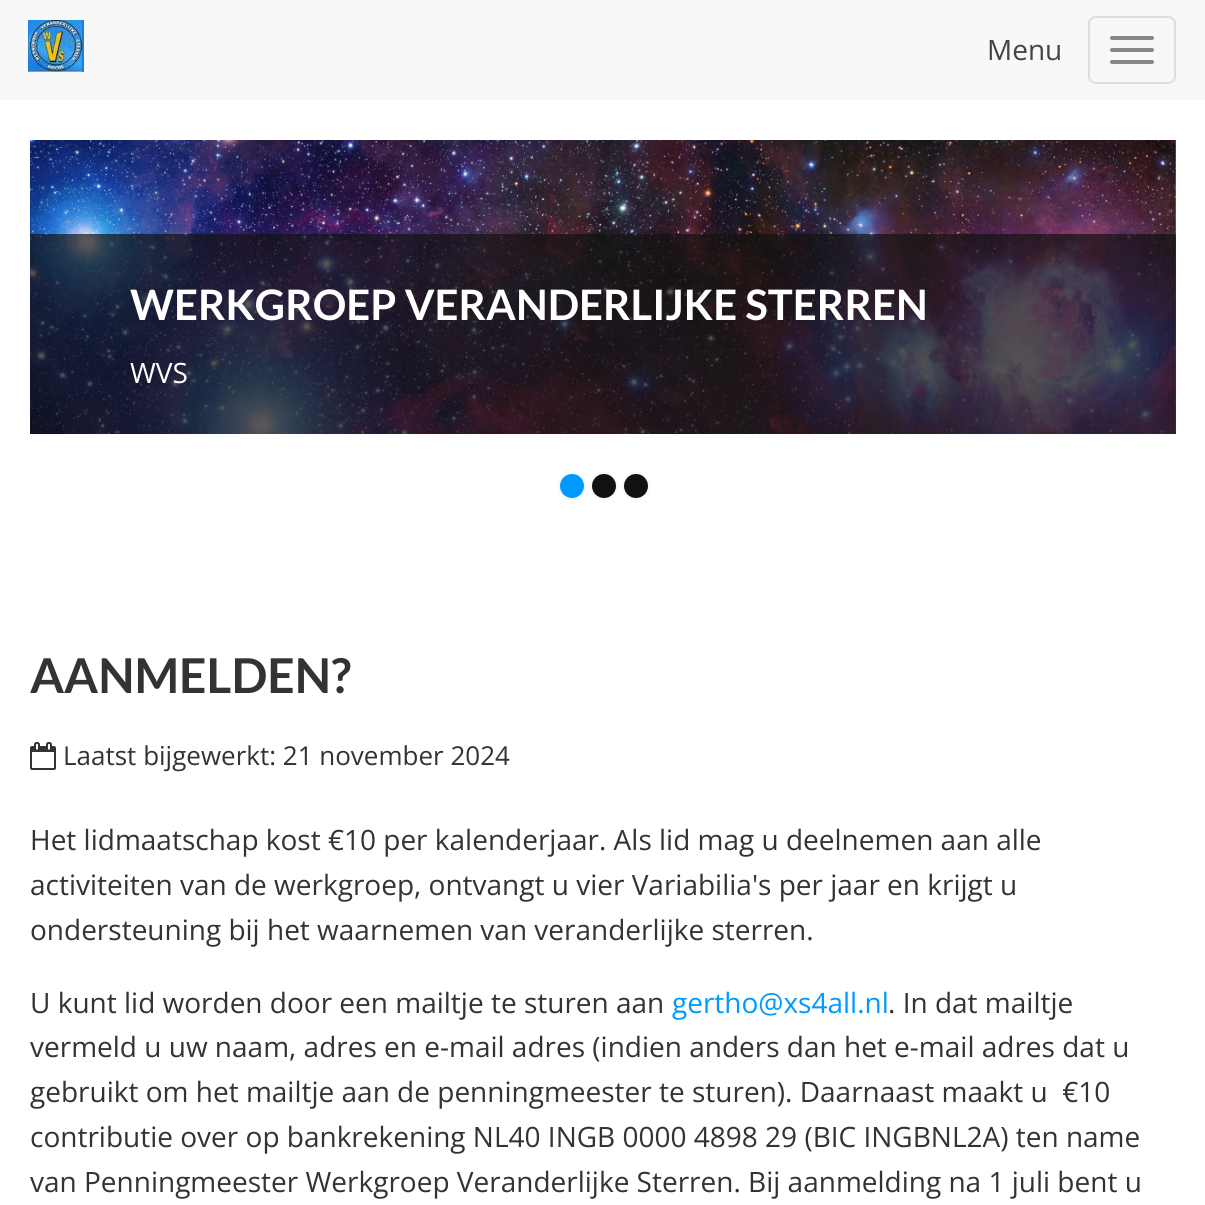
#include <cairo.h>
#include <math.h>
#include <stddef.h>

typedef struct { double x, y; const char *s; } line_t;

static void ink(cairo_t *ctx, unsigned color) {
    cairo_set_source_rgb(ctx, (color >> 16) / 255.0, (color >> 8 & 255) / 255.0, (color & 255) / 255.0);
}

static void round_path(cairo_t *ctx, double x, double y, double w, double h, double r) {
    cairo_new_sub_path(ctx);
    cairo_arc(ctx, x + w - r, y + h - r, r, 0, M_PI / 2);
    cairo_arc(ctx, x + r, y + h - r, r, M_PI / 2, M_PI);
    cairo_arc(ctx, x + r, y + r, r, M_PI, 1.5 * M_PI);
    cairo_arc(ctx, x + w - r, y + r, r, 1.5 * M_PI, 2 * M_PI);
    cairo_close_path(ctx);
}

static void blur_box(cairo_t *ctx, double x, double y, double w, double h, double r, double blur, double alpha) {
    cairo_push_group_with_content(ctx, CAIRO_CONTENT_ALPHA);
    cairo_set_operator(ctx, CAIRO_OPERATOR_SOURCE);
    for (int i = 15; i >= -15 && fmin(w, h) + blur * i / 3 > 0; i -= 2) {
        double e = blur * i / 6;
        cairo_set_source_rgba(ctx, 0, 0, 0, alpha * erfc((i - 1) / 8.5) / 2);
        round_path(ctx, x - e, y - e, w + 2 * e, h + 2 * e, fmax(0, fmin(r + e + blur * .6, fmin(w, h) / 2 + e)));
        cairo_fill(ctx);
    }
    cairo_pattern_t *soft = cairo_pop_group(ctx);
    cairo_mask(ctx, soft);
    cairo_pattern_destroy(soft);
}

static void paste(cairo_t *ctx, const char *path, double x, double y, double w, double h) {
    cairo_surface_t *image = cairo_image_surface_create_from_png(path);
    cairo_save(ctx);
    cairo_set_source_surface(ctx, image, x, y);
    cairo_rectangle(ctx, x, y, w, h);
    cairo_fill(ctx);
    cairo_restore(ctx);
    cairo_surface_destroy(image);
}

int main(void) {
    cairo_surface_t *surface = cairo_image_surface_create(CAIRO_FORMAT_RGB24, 1205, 1205);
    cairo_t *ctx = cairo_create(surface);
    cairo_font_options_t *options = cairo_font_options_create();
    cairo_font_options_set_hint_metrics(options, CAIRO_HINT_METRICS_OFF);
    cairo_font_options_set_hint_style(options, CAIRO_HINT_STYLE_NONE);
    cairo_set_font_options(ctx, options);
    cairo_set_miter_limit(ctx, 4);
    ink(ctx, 0xFFFFFF);
    cairo_paint(ctx);
    ink(ctx, 0xF8F8F8);
    cairo_rectangle(ctx, 0, 0, 1205, 100);
    cairo_fill(ctx);
    paste(ctx, "media/1.png", 28, 20, 56, 52);
    cairo_select_font_face(ctx, "Open Sans", CAIRO_FONT_SLANT_NORMAL, CAIRO_FONT_WEIGHT_NORMAL);
    cairo_set_font_size(ctx, 28);
    ink(ctx, 0x444444);
    cairo_move_to(ctx, 987, 60);
    cairo_show_text(ctx, "Menu");
    round_path(ctx, 1089, 17, 86, 66, 7);
    ink(ctx, 0xDDDDDD);
    cairo_stroke(ctx);
    ink(ctx, 0x888888);
    round_path(ctx, 1110, 36, 44, 4, 2);
    cairo_fill(ctx);
    round_path(ctx, 1110, 48, 44, 4, 2);
    cairo_fill(ctx);
    round_path(ctx, 1110, 60, 44, 4, 2);
    cairo_fill(ctx);
    paste(ctx, "media/2.png", 30, 140, 1146, 294);
    cairo_set_source_rgba(ctx, 0.067, 0.067, 0.067, 0.7);
    cairo_rectangle(ctx, 30, 234, 1146, 200);
    cairo_fill(ctx);
    cairo_select_font_face(ctx, "Lato", CAIRO_FONT_SLANT_NORMAL, CAIRO_FONT_WEIGHT_BOLD);
    cairo_set_font_size(ctx, 42);
    ink(ctx, 0xFFFFFF);
    cairo_move_to(ctx, 130, 320);
    cairo_show_text(ctx, "WERKGROEP VERANDERLIJKE STERREN");
    cairo_select_font_face(ctx, "Open Sans", CAIRO_FONT_SLANT_NORMAL, CAIRO_FONT_WEIGHT_NORMAL);
    cairo_set_font_size(ctx, 28);
    cairo_move_to(ctx, 130, 383);
    cairo_show_text(ctx, "WVS");
    ink(ctx, 0x000000);
    blur_box(ctx, 560, 474, 24, 24, 12, 2, 0.1);
    ink(ctx, 0x0099FF);
    cairo_arc(ctx, 572, 486, 12, 0, 2 * M_PI);
    cairo_fill(ctx);
    ink(ctx, 0x000000);
    blur_box(ctx, 592, 474, 24, 24, 12, 2, 0.1);
    ink(ctx, 0x111111);
    cairo_arc(ctx, 604, 486, 12, 0, 2 * M_PI);
    cairo_fill(ctx);
    ink(ctx, 0x000000);
    blur_box(ctx, 624, 474, 24, 24, 12, 2, 0.1);
    ink(ctx, 0x111111);
    cairo_arc(ctx, 636, 486, 12, 0, 2 * M_PI);
    cairo_fill(ctx);
    cairo_select_font_face(ctx, "Lato", CAIRO_FONT_SLANT_NORMAL, CAIRO_FONT_WEIGHT_BOLD);
    cairo_set_font_size(ctx, 48);
    ink(ctx, 0x333333);
    cairo_move_to(ctx, 30, 693);
    cairo_show_text(ctx, "AANMELDEN?");
    paste(ctx, "media/3.png", 30, 742, 26, 28);
    cairo_select_font_face(ctx, "Open Sans", CAIRO_FONT_SLANT_NORMAL, CAIRO_FONT_WEIGHT_NORMAL);
    cairo_set_font_size(ctx, 26);
    cairo_move_to(ctx, 63, 765);
    cairo_show_text(ctx, "Laatst bijgewerkt: 21 november 2024");
    cairo_set_font_size(ctx, 28);
    {
        static const line_t items[] = {
            {30, 850, "Het lidmaatschap kost €10 per kalenderjaar. Als lid mag u deelnemen aan alle"},
            {30, 895, "activiteiten van de werkgroep, ontvangt u vier Variabilia's per jaar en krijgt u"},
            {30, 940, "ondersteuning bij het waarnemen van veranderlijke sterren."},
            {30, 1013, "U kunt lid worden door een mailtje te sturen aan"},
        };
        for (size_t i = 0; i < sizeof items / sizeof *items; i++) {
            cairo_move_to(ctx, items[i].x, items[i].y);
            cairo_show_text(ctx, items[i].s);
        }
    }
    ink(ctx, 0x0099FF);
    cairo_move_to(ctx, 672, 1013);
    cairo_show_text(ctx, "gertho@xs4all.nl");
    ink(ctx, 0x333333);
    {
        static const line_t items[] = {
            {888, 1013, ". In dat mailtje"},
            {30, 1057, "vermeld u uw naam, adres en e-mail adres (indien anders dan het e-mail adres dat u"},
            {30, 1102, "gebruikt om het mailtje aan de penningmeester te sturen). Daarnaast maakt u  €10"},
            {30, 1147, "contributie over op bankrekening NL40 INGB 0000 4898 29 (BIC INGBNL2A) ten name"},
            {30, 1192, "van Penningmeester Werkgroep Veranderlijke Sterren. Bij aanmelding na 1 juli bent u"},
        };
        for (size_t i = 0; i < sizeof items / sizeof *items; i++) {
            cairo_move_to(ctx, items[i].x, items[i].y);
            cairo_show_text(ctx, items[i].s);
        }
    }
    cairo_surface_write_to_png(surface, "image.png");
    cairo_font_options_destroy(options);
    cairo_destroy(ctx);
    cairo_surface_destroy(surface);
    return 0;
}
